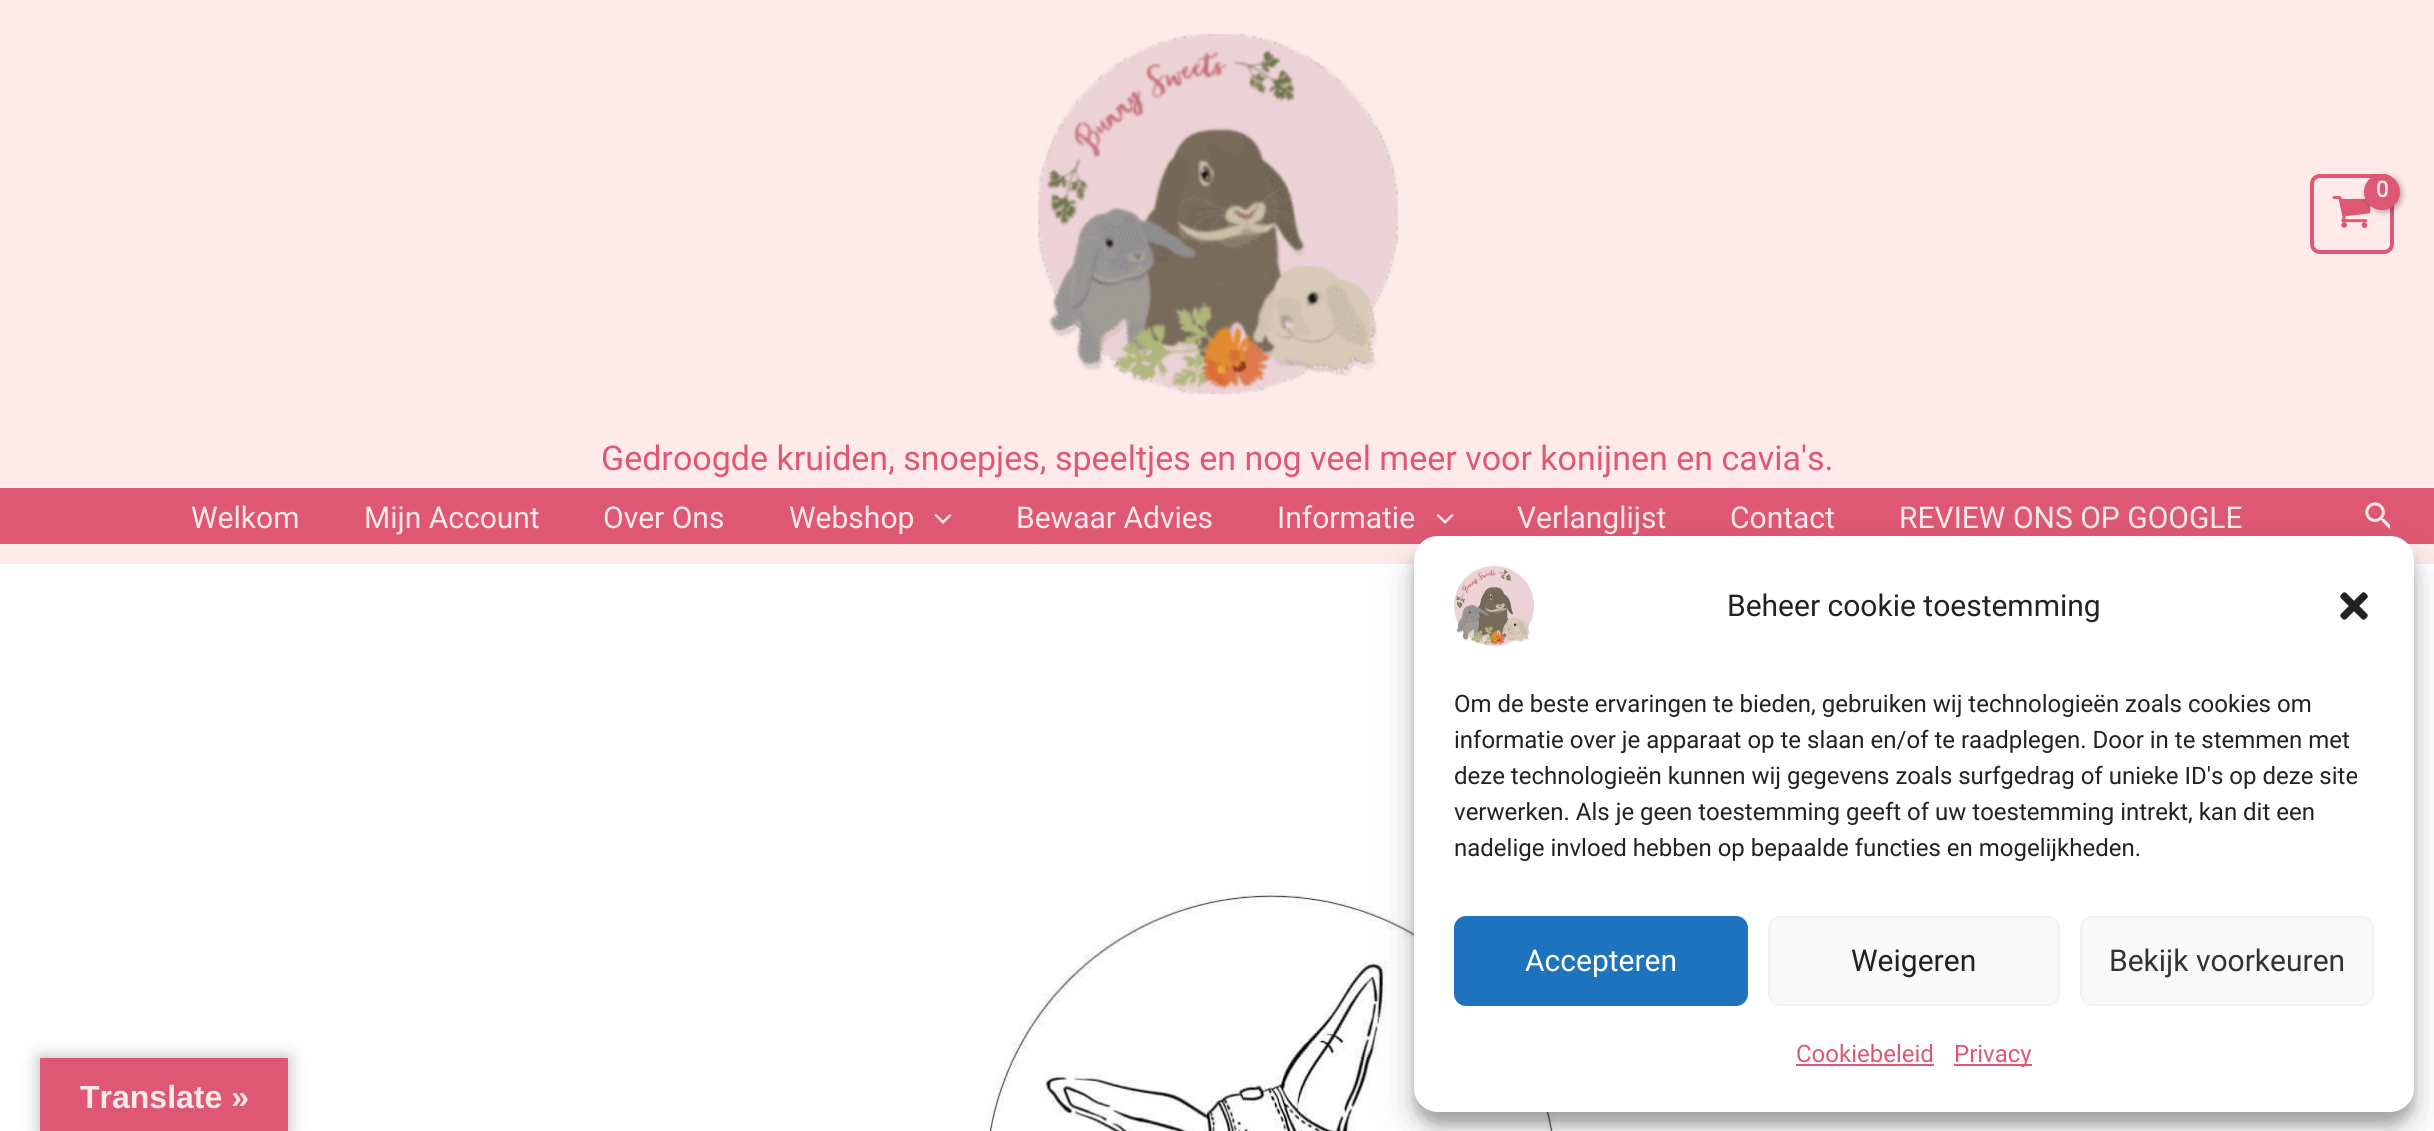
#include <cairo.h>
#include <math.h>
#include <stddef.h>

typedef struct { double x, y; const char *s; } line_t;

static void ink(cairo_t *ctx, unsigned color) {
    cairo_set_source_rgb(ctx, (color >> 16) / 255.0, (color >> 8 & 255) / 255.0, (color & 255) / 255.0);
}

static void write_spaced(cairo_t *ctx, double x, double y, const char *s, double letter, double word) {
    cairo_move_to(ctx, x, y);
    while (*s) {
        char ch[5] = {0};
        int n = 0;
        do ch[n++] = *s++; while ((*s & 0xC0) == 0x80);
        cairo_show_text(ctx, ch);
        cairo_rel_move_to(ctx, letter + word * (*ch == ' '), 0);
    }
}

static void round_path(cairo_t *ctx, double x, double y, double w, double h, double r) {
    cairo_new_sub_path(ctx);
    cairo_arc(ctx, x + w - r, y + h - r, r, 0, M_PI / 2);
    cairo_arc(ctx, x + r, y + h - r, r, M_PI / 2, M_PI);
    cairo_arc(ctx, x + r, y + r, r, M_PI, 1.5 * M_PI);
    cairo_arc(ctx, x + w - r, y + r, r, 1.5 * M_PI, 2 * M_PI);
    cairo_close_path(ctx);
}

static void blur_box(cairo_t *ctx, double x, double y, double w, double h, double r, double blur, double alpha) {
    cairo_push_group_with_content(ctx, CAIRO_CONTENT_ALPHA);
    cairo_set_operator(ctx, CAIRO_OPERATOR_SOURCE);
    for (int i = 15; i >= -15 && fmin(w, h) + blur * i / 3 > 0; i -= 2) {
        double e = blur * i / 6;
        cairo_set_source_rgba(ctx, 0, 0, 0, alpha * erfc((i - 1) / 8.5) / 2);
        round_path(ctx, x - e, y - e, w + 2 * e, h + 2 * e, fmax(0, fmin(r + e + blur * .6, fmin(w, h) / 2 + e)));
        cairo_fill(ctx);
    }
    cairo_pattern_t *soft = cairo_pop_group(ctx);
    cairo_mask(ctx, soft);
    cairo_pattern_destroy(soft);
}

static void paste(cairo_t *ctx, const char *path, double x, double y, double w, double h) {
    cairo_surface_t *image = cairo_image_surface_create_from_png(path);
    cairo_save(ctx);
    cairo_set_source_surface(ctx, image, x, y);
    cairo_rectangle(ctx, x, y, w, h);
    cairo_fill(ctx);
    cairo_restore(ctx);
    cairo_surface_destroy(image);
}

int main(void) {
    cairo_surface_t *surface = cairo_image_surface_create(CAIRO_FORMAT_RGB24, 2434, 1131);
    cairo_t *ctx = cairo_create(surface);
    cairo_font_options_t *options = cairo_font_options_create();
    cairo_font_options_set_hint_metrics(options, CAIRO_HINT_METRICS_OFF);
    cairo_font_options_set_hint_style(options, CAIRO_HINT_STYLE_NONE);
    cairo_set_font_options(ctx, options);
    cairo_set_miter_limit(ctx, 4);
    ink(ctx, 0xFFFFFF);
    cairo_paint(ctx);
    ink(ctx, 0xFEEAEB);
    cairo_rectangle(ctx, 0, 0, 2434, 488);
    cairo_fill(ctx);
    paste(ctx, "media/1.png", 1038, 34, 360, 360);
    round_path(ctx, 2312, 176, 80, 76, 8);
    ink(ctx, 0xDE5873);
    cairo_set_line_width(ctx, 4);
    cairo_stroke(ctx);
    paste(ctx, "media/2.png", 2332, 196, 39, 32);
    ink(ctx, 0x000000);
    blur_box(ctx, 2366, 176, 36, 36, 18, 3, 0.3);
    ink(ctx, 0xDE5873);
    cairo_arc(ctx, 2382, 192, 18, 0, 2 * M_PI);
    cairo_fill(ctx);
    cairo_select_font_face(ctx, "Roboto", CAIRO_FONT_SLANT_NORMAL, CAIRO_FONT_WEIGHT_BOLD);
    cairo_set_font_size(ctx, 22);
    ink(ctx, 0xFEEAEB);
    write_spaced(ctx, 2376, 197, "0", -1, 0);
    cairo_select_font_face(ctx, "Roboto", CAIRO_FONT_SLANT_NORMAL, CAIRO_FONT_WEIGHT_NORMAL);
    cairo_set_font_size(ctx, 34);
    ink(ctx, 0xDE5873);
    cairo_move_to(ctx, 601, 470);
    cairo_show_text(ctx, "Gedroogde kruiden, snoepjes, speeltjes en nog veel meer voor konijnen en cavia's.");
    cairo_rectangle(ctx, 0, 488, 2434, 56);
    cairo_fill(ctx);
    ink(ctx, 0xFEEAEB);
    cairo_rectangle(ctx, 0, 544, 2434, 20);
    cairo_fill(ctx);
    cairo_set_font_size(ctx, 30);
    {
        static const line_t items[] = {
            {191, 528, "Welkom"},
            {364, 528, "Mijn Account"},
            {603, 528, "Over Ons"},
            {789, 528, "Webshop"},
        };
        for (size_t i = 0; i < sizeof items / sizeof *items; i++) {
            cairo_move_to(ctx, items[i].x, items[i].y);
            cairo_show_text(ctx, items[i].s);
        }
    }
    cairo_new_path(ctx);
    cairo_move_to(ctx, 934.5, 515.5);
    cairo_line_to(ctx, 943, 524);
    cairo_line_to(ctx, 951.5, 515.5);
    cairo_line_to(ctx, 950, 514);
    cairo_line_to(ctx, 943, 520.5);
    cairo_line_to(ctx, 936, 514);
    cairo_close_path(ctx);
    cairo_fill(ctx);
    cairo_move_to(ctx, 1016, 528);
    cairo_show_text(ctx, "Bewaar Advies");
    cairo_move_to(ctx, 1277, 528);
    cairo_show_text(ctx, "Informatie");
    cairo_new_path(ctx);
    cairo_move_to(ctx, 1436.5, 515.5);
    cairo_line_to(ctx, 1445, 524);
    cairo_line_to(ctx, 1453.5, 515.5);
    cairo_line_to(ctx, 1452, 514);
    cairo_line_to(ctx, 1445, 520.5);
    cairo_line_to(ctx, 1438, 514);
    cairo_close_path(ctx);
    cairo_fill(ctx);
    {
        static const line_t items[] = {
            {1517, 528, "Verlanglijst"},
            {1730, 528, "Contact"},
            {1899, 528, "REVIEW ONS OP GOOGLE"},
        };
        for (size_t i = 0; i < sizeof items / sizeof *items; i++) {
            cairo_move_to(ctx, items[i].x, items[i].y);
            cairo_show_text(ctx, items[i].s);
        }
    }
    paste(ctx, "media/3.png", 2365, 502, 25, 27);
    paste(ctx, "media/4.png", 988, 890, 566, 241);
    ink(ctx, 0x000000);
    blur_box(ctx, 1414, 548, 1000, 576, 24, 6, 0.23);
    blur_box(ctx, 1414, 556, 1000, 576, 24, 20, 0.19);
    ink(ctx, 0xFFFFFF);
    round_path(ctx, 1414, 536, 1000, 576, 24);
    cairo_fill(ctx);
    paste(ctx, "media/5.png", 1454, 565, 80, 81);
    ink(ctx, 0x222222);
    cairo_move_to(ctx, 1727, 616);
    cairo_show_text(ctx, "Beheer cookie toestemming");
    paste(ctx, "media/6.png", 2340, 592, 28, 28);
    cairo_set_font_size(ctx, 24);
    {
        static const line_t items[] = {
            {1454, 712, "Om de beste ervaringen te bieden, gebruiken wij technologieën zoals cookies om"},
            {1454, 748, "informatie over je apparaat op te slaan en/of te raadplegen. Door in te stemmen met"},
            {1454, 784, "deze technologieën kunnen wij gegevens zoals surfgedrag of unieke ID's op deze site"},
            {1454, 820, "verwerken. Als je geen toestemming geeft of uw toestemming intrekt, kan dit een"},
            {1454, 856, "nadelige invloed hebben op bepaalde functies en mogelijkheden."},
        };
        for (size_t i = 0; i < sizeof items / sizeof *items; i++) {
            cairo_move_to(ctx, items[i].x, items[i].y);
            cairo_show_text(ctx, items[i].s);
        }
    }
    ink(ctx, 0x1E73BE);
    round_path(ctx, 1455, 917, 292, 88, 11);
    cairo_fill_preserve(ctx);
    cairo_set_line_width(ctx, 2);
    cairo_stroke(ctx);
    cairo_set_font_size(ctx, 30);
    ink(ctx, 0xFFFFFF);
    cairo_move_to(ctx, 1525, 971);
    cairo_show_text(ctx, "Accepteren");
    ink(ctx, 0xF9F9F9);
    round_path(ctx, 1769, 917, 290, 88, 11);
    cairo_fill_preserve(ctx);
    ink(ctx, 0xF2F2F2);
    cairo_stroke(ctx);
    ink(ctx, 0x222222);
    cairo_move_to(ctx, 1851, 971);
    cairo_show_text(ctx, "Weigeren");
    ink(ctx, 0xF9F9F9);
    round_path(ctx, 2081, 917, 292, 88, 11);
    cairo_fill_preserve(ctx);
    ink(ctx, 0xF2F2F2);
    cairo_stroke(ctx);
    ink(ctx, 0x333333);
    cairo_move_to(ctx, 2109, 971);
    cairo_show_text(ctx, "Bekijk voorkeuren");
    cairo_set_font_size(ctx, 24);
    ink(ctx, 0xDE5873);
    cairo_move_to(ctx, 1796, 1062);
    cairo_show_text(ctx, "Cookiebeleid");
    cairo_rectangle(ctx, 1796, 1064, 138, 2);
    cairo_fill(ctx);
    cairo_rectangle(ctx, 1954, 1064, 78, 2);
    cairo_fill(ctx);
    cairo_move_to(ctx, 1954, 1062);
    cairo_show_text(ctx, "Privacy");
    ink(ctx, 0x000000);
    blur_box(ctx, 40, 1058, 248, 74, 0, 9, 0.3);
    ink(ctx, 0xDE5873);
    cairo_rectangle(ctx, 40, 1058, 248, 73);
    cairo_fill(ctx);
    cairo_select_font_face(ctx, "Liberation Sans", CAIRO_FONT_SLANT_NORMAL, CAIRO_FONT_WEIGHT_BOLD);
    cairo_set_font_size(ctx, 32);
    ink(ctx, 0xFEEAEB);
    cairo_move_to(ctx, 80, 1108);
    cairo_show_text(ctx, "Translate »");
    cairo_surface_write_to_png(surface, "image.png");
    cairo_font_options_destroy(options);
    cairo_destroy(ctx);
    cairo_surface_destroy(surface);
    return 0;
}
